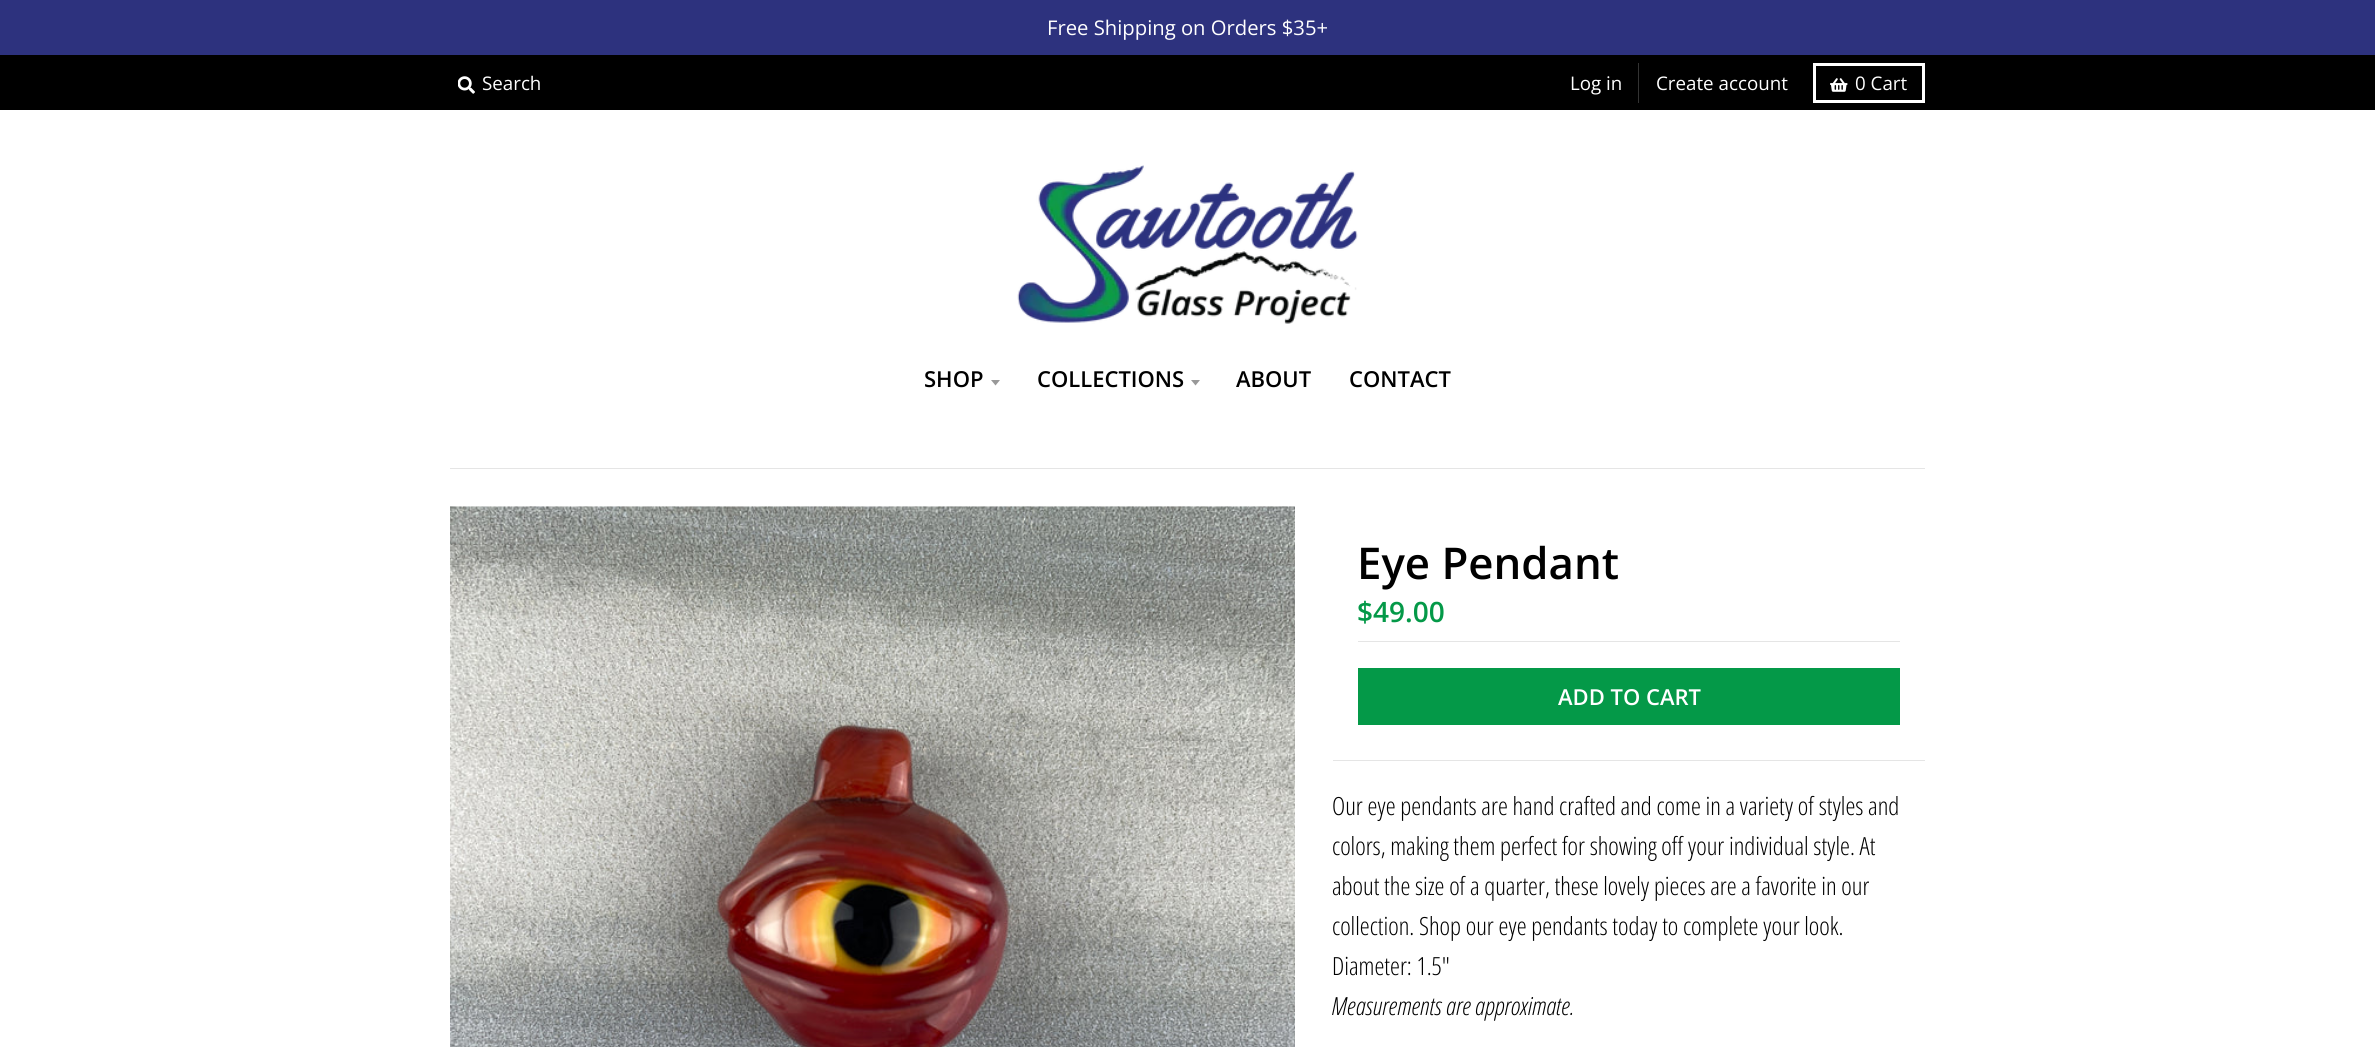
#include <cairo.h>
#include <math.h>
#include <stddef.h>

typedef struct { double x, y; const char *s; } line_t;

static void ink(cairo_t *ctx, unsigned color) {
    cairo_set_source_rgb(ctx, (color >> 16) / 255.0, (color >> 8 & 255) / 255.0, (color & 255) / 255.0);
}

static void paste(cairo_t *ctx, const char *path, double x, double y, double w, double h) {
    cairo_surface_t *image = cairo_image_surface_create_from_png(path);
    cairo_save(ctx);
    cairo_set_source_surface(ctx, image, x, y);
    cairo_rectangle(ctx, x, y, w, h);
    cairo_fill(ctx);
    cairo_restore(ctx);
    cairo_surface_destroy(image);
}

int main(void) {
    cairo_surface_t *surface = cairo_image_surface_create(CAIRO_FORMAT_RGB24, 2375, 1047);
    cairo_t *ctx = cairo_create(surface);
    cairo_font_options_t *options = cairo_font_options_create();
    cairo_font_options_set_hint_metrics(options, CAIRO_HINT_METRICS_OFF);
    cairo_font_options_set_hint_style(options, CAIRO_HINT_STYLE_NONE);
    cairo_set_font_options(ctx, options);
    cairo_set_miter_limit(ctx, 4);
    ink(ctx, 0xFFFFFF);
    cairo_paint(ctx);
    ink(ctx, 0x2D327E);
    cairo_rectangle(ctx, 0, 0, 2375, 55);
    cairo_fill(ctx);
    cairo_select_font_face(ctx, "Open Sans", CAIRO_FONT_SLANT_NORMAL, CAIRO_FONT_WEIGHT_NORMAL);
    cairo_set_font_size(ctx, 20.25);
    ink(ctx, 0xFFFFFF);
    cairo_move_to(ctx, 1047, 35);
    cairo_show_text(ctx, "Free Shipping on Orders $35+");
    ink(ctx, 0x000000);
    cairo_rectangle(ctx, 0, 55, 2375, 55);
    cairo_fill(ctx);
    paste(ctx, "media/1.png", 458, 76, 17, 18);
    cairo_set_font_size(ctx, 18.75);
    ink(ctx, 0xFFFFFF);
    cairo_move_to(ctx, 482, 90);
    cairo_show_text(ctx, "Search");
    ink(ctx, 0x333333);
    cairo_rectangle(ctx, 1638, 63, 1, 40);
    cairo_fill(ctx);
    ink(ctx, 0xFFFFFF);
    cairo_move_to(ctx, 1570, 90);
    cairo_show_text(ctx, "Log in");
    cairo_move_to(ctx, 1656, 90);
    cairo_show_text(ctx, "Create account");
    cairo_rectangle(ctx, 1814.5, 64.5, 109, 37);
    cairo_set_line_width(ctx, 3);
    cairo_stroke(ctx);
    paste(ctx, "media/2.png", 1830, 78, 18, 14);
    cairo_move_to(ctx, 1855, 90);
    cairo_show_text(ctx, "0 Cart");
    paste(ctx, "media/3.png", 1017, 165, 341, 159);
    cairo_select_font_face(ctx, "Open Sans SemiBold", CAIRO_FONT_SLANT_NORMAL, CAIRO_FONT_WEIGHT_NORMAL);
    cairo_set_font_size(ctx, 22);
    ink(ctx, 0x000000);
    cairo_move_to(ctx, 924, 387);
    cairo_show_text(ctx, "SHOP");
    ink(ctx, 0x999999);
    cairo_new_path(ctx);
    cairo_move_to(ctx, 991, 380);
    cairo_line_to(ctx, 995.5, 385.5);
    cairo_line_to(ctx, 1000, 380);
    cairo_close_path(ctx);
    cairo_fill(ctx);
    ink(ctx, 0x000000);
    cairo_move_to(ctx, 1037, 387);
    cairo_show_text(ctx, "COLLECTIONS");
    ink(ctx, 0x999999);
    cairo_new_path(ctx);
    cairo_move_to(ctx, 1191, 380);
    cairo_line_to(ctx, 1195.5, 385.5);
    cairo_line_to(ctx, 1200, 380);
    cairo_close_path(ctx);
    cairo_fill(ctx);
    ink(ctx, 0x000000);
    cairo_move_to(ctx, 1236, 387);
    cairo_show_text(ctx, "ABOUT");
    cairo_move_to(ctx, 1349, 387);
    cairo_show_text(ctx, "CONTACT");
    ink(ctx, 0xE5E5E5);
    cairo_rectangle(ctx, 450, 468, 1475, 1);
    cairo_fill(ctx);
    paste(ctx, "media/4.png", 450, 506, 845, 541);
    cairo_rectangle(ctx, 1333, 760, 592, 1);
    cairo_fill(ctx);
    cairo_set_font_size(ctx, 43.75);
    ink(ctx, 0x000000);
    cairo_move_to(ctx, 1357, 579);
    cairo_show_text(ctx, "Eye Pendant");
    ink(ctx, 0xE5E5E5);
    cairo_rectangle(ctx, 1358, 641, 542, 1);
    cairo_fill(ctx);
    cairo_set_font_size(ctx, 28);
    ink(ctx, 0x049948);
    cairo_move_to(ctx, 1357, 622);
    cairo_show_text(ctx, "$49.00");
    cairo_rectangle(ctx, 1358, 668, 542, 57);
    cairo_fill(ctx);
    cairo_set_font_size(ctx, 22);
    ink(ctx, 0xFFFFFF);
    cairo_move_to(ctx, 1558, 705);
    cairo_show_text(ctx, "ADD TO CART");
    cairo_select_font_face(ctx, "Open Sans Condensed Light", CAIRO_FONT_SLANT_NORMAL, CAIRO_FONT_WEIGHT_NORMAL);
    cairo_set_font_size(ctx, 25);
    ink(ctx, 0x000000);
    {
        static const line_t items[] = {
            {1332, 815, "Our eye pendants are hand crafted and come in a variety of styles and"},
            {1332, 855, "colors, making them perfect for showing off your individual style. At"},
            {1332, 895, "about the size of a quarter, these lovely pieces are a favorite in our"},
            {1332, 935, "collection. Shop our eye pendants today to complete your look."},
            {1332, 975, "Diameter: 1.5\""},
        };
        for (size_t i = 0; i < sizeof items / sizeof *items; i++) {
            cairo_move_to(ctx, items[i].x, items[i].y);
            cairo_show_text(ctx, items[i].s);
        }
    }
    cairo_select_font_face(ctx, "Open Sans Condensed Light", CAIRO_FONT_SLANT_ITALIC, CAIRO_FONT_WEIGHT_NORMAL);
    cairo_move_to(ctx, 1332, 1015);
    cairo_show_text(ctx, "Measurements are approximate.");
    cairo_surface_write_to_png(surface, "image.png");
    cairo_font_options_destroy(options);
    cairo_destroy(ctx);
    cairo_surface_destroy(surface);
    return 0;
}
